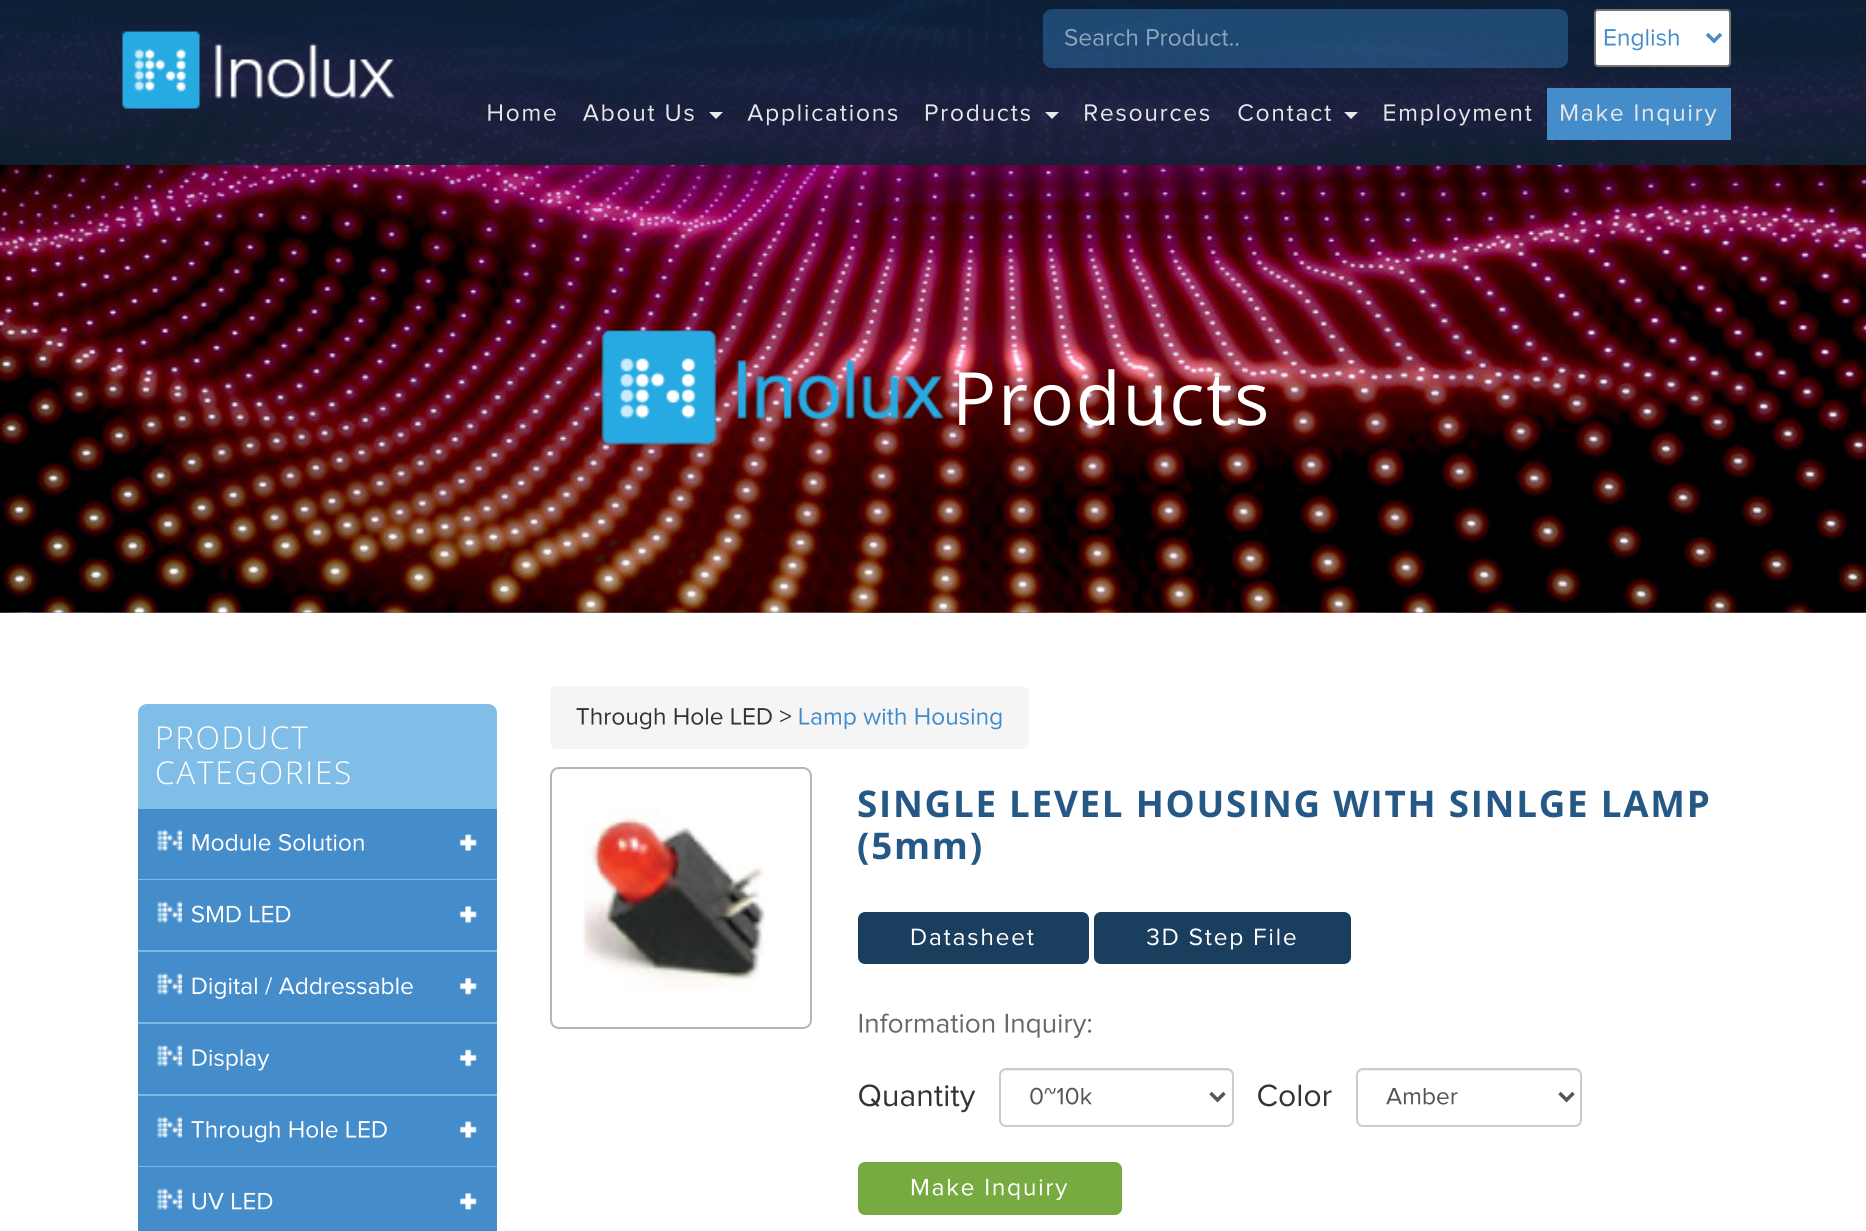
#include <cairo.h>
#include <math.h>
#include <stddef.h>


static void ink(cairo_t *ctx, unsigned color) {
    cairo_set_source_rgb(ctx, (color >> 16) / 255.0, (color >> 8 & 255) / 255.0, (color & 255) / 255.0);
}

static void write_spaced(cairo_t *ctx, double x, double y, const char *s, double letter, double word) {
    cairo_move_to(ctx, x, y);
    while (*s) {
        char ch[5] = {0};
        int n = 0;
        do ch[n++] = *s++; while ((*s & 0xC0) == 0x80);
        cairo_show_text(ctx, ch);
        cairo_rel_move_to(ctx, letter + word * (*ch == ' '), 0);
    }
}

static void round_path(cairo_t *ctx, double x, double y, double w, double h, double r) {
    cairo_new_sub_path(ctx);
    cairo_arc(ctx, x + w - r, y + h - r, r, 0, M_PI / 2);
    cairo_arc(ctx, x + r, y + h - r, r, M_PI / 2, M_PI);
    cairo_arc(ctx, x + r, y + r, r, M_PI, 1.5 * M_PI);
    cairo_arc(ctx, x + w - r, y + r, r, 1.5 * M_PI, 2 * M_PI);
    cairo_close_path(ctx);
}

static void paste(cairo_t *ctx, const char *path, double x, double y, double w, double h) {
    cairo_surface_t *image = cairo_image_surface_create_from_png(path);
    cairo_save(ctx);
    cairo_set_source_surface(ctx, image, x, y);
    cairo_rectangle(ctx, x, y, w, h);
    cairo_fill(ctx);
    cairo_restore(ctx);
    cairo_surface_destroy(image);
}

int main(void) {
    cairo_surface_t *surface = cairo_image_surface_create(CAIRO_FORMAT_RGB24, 1866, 1231);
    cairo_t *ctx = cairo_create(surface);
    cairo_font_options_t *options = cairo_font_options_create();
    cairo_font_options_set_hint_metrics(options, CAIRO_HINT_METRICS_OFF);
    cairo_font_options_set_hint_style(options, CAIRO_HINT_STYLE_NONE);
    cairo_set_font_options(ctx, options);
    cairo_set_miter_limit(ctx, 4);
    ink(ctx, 0xFFFFFF);
    cairo_paint(ctx);
    paste(ctx, "media/2.png", 0, 612, 1866, 1);
    paste(ctx, "media/3.png", 0, 612, 1866, 1);
    paste(ctx, "media/1.png", 0, 0, 1866, 613);
    cairo_set_source_rgba(ctx, 0.059, 0.137, 0.208, 0.9);
    cairo_rectangle(ctx, 0, 0, 1866, 165);
    cairo_fill(ctx);
    paste(ctx, "media/4.png", 122, 31, 274, 78);
    cairo_set_source_rgba(ctx, 0.188, 0.447, 0.678, 0.5);
    round_path(ctx, 1043, 9, 525, 59, 9);
    cairo_fill(ctx);
    cairo_set_source_rgba(ctx, 0, 0, 0, 0.07);
    cairo_new_path(ctx);
    cairo_move_to(ctx, 1052, 10);
    cairo_line_to(ctx, 1559, 10);
    cairo_curve_to(ctx, 1564, 10, 1568, 14, 1568, 19);
    cairo_curve_to(ctx, 1568, 14, 1565, 9, 1559, 9);
    cairo_line_to(ctx, 1052, 9);
    cairo_curve_to(ctx, 1046, 9, 1043, 14, 1043, 19);
    cairo_curve_to(ctx, 1043, 14, 1047, 10, 1052, 10);
    cairo_close_path(ctx);
    cairo_fill(ctx);
    paste(ctx, "media/5.png", 1065, 28, 174, 18);
    ink(ctx, 0xFFFFFF);
    round_path(ctx, 1595, 10, 135, 56, 3);
    cairo_fill_preserve(ctx);
    ink(ctx, 0x767676);
    cairo_stroke(ctx);
    cairo_new_path(ctx);
    cairo_move_to(ctx, 1707, 34);
    cairo_line_to(ctx, 1714, 41);
    cairo_line_to(ctx, 1721, 34);
    ink(ctx, 0x448CCB);
    cairo_set_line_width(ctx, 3.5);
    cairo_stroke(ctx);
    paste(ctx, "media/6.png", 1604, 29, 75, 22);
    paste(ctx, "media/7.png", 488, 104, 68, 17);
    paste(ctx, "media/8.png", 583, 104, 111, 17);
    ink(ctx, 0xE8E8E8);
    cairo_new_path(ctx);
    cairo_move_to(ctx, 709, 112);
    cairo_line_to(ctx, 723, 112);
    cairo_line_to(ctx, 716, 119);
    cairo_close_path(ctx);
    cairo_fill(ctx);
    paste(ctx, "media/9.png", 747, 104, 151, 22);
    paste(ctx, "media/10.png", 925, 104, 105, 17);
    cairo_new_path(ctx);
    cairo_move_to(ctx, 1045, 112);
    cairo_line_to(ctx, 1059, 112);
    cairo_line_to(ctx, 1052, 119);
    cairo_close_path(ctx);
    cairo_fill(ctx);
    paste(ctx, "media/11.png", 1085, 104, 125, 17);
    paste(ctx, "media/12.png", 1238, 104, 94, 17);
    cairo_new_path(ctx);
    cairo_move_to(ctx, 1344, 112);
    cairo_line_to(ctx, 1358, 112);
    cairo_line_to(ctx, 1351, 119);
    cairo_close_path(ctx);
    cairo_fill(ctx);
    paste(ctx, "media/13.png", 1384, 104, 148, 22);
    ink(ctx, 0x458CCB);
    cairo_rectangle(ctx, 1547, 88, 184, 52);
    cairo_fill(ctx);
    paste(ctx, "media/14.png", 1561, 104, 156, 22);
    paste(ctx, "media/15.png", 601, 330, 343, 115);
    cairo_select_font_face(ctx, "Open Sans", CAIRO_FONT_SLANT_NORMAL, CAIRO_FONT_WEIGHT_NORMAL);
    cairo_set_font_size(ctx, 73.5);
    ink(ctx, 0xFFFFFF);
    write_spaced(ctx, 952, 425, "Products", 1.75, 0);
    ink(ctx, 0x80BEE8);
    cairo_new_path(ctx);
    cairo_move_to(ctx, 147, 704);
    cairo_line_to(ctx, 488, 704);
    cairo_curve_to(ctx, 493, 704, 497, 708, 497, 713);
    cairo_line_to(ctx, 497, 809);
    cairo_line_to(ctx, 138, 809);
    cairo_line_to(ctx, 138, 713);
    cairo_curve_to(ctx, 138, 708, 142, 704, 147, 704);
    cairo_close_path(ctx);
    cairo_fill(ctx);
    cairo_select_font_face(ctx, "Open Sans Light", CAIRO_FONT_SLANT_NORMAL, CAIRO_FONT_WEIGHT_NORMAL);
    cairo_set_font_size(ctx, 31.5);
    ink(ctx, 0xFFFFFF);
    write_spaced(ctx, 155, 749, "PRODUCT", 1.75, 0);
    write_spaced(ctx, 155, 784, "CATEGORIES", 1.75, 0);
    ink(ctx, 0x458CCB);
    cairo_rectangle(ctx, 138, 809, 359, 70);
    cairo_fill(ctx);
    paste(ctx, "media/16.png", 459, 834, 18, 17);
    ink(ctx, 0x7CB8E5);
    cairo_rectangle(ctx, 138, 879, 359, 1);
    cairo_fill(ctx);
    paste(ctx, "media/17.png", 157, 829, 25, 22);
    paste(ctx, "media/18.png", 192, 833, 172, 18);
    ink(ctx, 0x458CCB);
    cairo_rectangle(ctx, 138, 880, 359, 70);
    cairo_fill(ctx);
    paste(ctx, "media/19.png", 459, 906, 18, 17);
    ink(ctx, 0x7CB8E5);
    cairo_rectangle(ctx, 138, 950, 359, 2);
    cairo_fill(ctx);
    paste(ctx, "media/20.png", 157, 901, 25, 22);
    paste(ctx, "media/21.png", 191, 905, 100, 18);
    ink(ctx, 0x458CCB);
    cairo_rectangle(ctx, 138, 952, 359, 70);
    cairo_fill(ctx);
    paste(ctx, "media/22.png", 459, 977, 18, 18);
    ink(ctx, 0x7CB8E5);
    cairo_rectangle(ctx, 138, 1022, 359, 2);
    cairo_fill(ctx);
    paste(ctx, "media/23.png", 157, 972, 25, 23);
    paste(ctx, "media/24.png", 192, 977, 221, 22);
    ink(ctx, 0x458CCB);
    cairo_rectangle(ctx, 138, 1024, 359, 70);
    cairo_fill(ctx);
    paste(ctx, "media/25.png", 459, 1049, 18, 18);
    ink(ctx, 0x7CB8E5);
    cairo_rectangle(ctx, 138, 1094, 359, 2);
    cairo_fill(ctx);
    paste(ctx, "media/26.png", 157, 1044, 25, 23);
    paste(ctx, "media/27.png", 192, 1049, 78, 22);
    ink(ctx, 0x458CCB);
    cairo_rectangle(ctx, 138, 1096, 359, 70);
    cairo_fill(ctx);
    paste(ctx, "media/16.png", 459, 1121, 18, 17);
    ink(ctx, 0x7CB8E5);
    cairo_rectangle(ctx, 138, 1166, 359, 1);
    cairo_fill(ctx);
    paste(ctx, "media/17.png", 157, 1116, 25, 22);
    paste(ctx, "media/28.png", 191, 1121, 196, 22);
    ink(ctx, 0x458CCB);
    cairo_rectangle(ctx, 138, 1167, 359, 64);
    cairo_fill(ctx);
    paste(ctx, "media/19.png", 459, 1193, 18, 17);
    paste(ctx, "media/20.png", 157, 1188, 25, 22);
    paste(ctx, "media/29.png", 192, 1192, 81, 18);
    ink(ctx, 0xF5F5F5);
    round_path(ctx, 550, 686, 479, 63, 7);
    cairo_fill(ctx);
    paste(ctx, "media/30.png", 576, 708, 215, 22);
    paste(ctx, "media/31.png", 799, 708, 203, 22);
    round_path(ctx, 551, 768, 260, 260, 8);
    ink(ctx, 0xB3B6BB);
    cairo_set_line_width(ctx, 2);
    cairo_stroke(ctx);
    paste(ctx, "media/32.png", 583, 809, 182, 182);
    cairo_select_font_face(ctx, "Open Sans", CAIRO_FONT_SLANT_NORMAL, CAIRO_FONT_WEIGHT_BOLD);
    cairo_set_font_size(ctx, 36.75);
    ink(ctx, 0x255885);
    write_spaced(ctx, 857, 817, "SINGLE LEVEL HOUSING WITH SINLGE LAMP", 1.75, 0);
    write_spaced(ctx, 857, 859, "(5mm)", 1.75, 0);
    ink(ctx, 0x1A3E5D);
    round_path(ctx, 858, 912, 231, 52, 7);
    cairo_fill(ctx);
    paste(ctx, "media/33.png", 911, 928, 123, 18);
    round_path(ctx, 1094, 912, 257, 52, 7);
    cairo_fill(ctx);
    paste(ctx, "media/34.png", 1147, 928, 149, 22);
    paste(ctx, "media/35.png", 859, 1013, 233, 25);
    paste(ctx, "media/36.png", 859, 1084, 117, 29);
    ink(ctx, 0xECECEC);
    cairo_new_path(ctx);
    cairo_move_to(ctx, 1006, 1071);
    cairo_line_to(ctx, 1227, 1071);
    cairo_curve_to(ctx, 1230, 1071, 1232, 1073, 1232, 1076);
    cairo_curve_to(ctx, 1232, 1073, 1232, 1070, 1228, 1069);
    cairo_line_to(ctx, 1006, 1069);
    cairo_curve_to(ctx, 1002, 1069, 1001, 1073, 1001, 1076);
    cairo_curve_to(ctx, 1001, 1073, 1003, 1071, 1006, 1071);
    cairo_close_path(ctx);
    cairo_fill(ctx);
    round_path(ctx, 1000, 1069, 233, 57, 6);
    ink(ctx, 0xCCCCCC);
    cairo_stroke(ctx);
    cairo_new_path(ctx);
    cairo_move_to(ctx, 1210.5, 1093);
    cairo_line_to(ctx, 1217.5, 1100);
    cairo_line_to(ctx, 1224.5, 1093);
    ink(ctx, 0x555555);
    cairo_set_line_width(ctx, 3.5);
    cairo_stroke(ctx);
    paste(ctx, "media/37.png", 1030, 1087, 62, 18);
    paste(ctx, "media/38.png", 1258, 1084, 74, 23);
    ink(ctx, 0xECECEC);
    cairo_new_path(ctx);
    cairo_move_to(ctx, 1363, 1071);
    cairo_line_to(ctx, 1575, 1071);
    cairo_curve_to(ctx, 1578, 1071, 1580, 1073, 1580, 1076);
    cairo_line_to(ctx, 1580, 1074);
    cairo_curve_to(ctx, 1580, 1071, 1578, 1069, 1575, 1069);
    cairo_line_to(ctx, 1363, 1069);
    cairo_curve_to(ctx, 1360, 1069, 1358, 1071, 1358, 1074);
    cairo_line_to(ctx, 1358, 1076);
    cairo_curve_to(ctx, 1358, 1073, 1360, 1071, 1363, 1071);
    cairo_close_path(ctx);
    cairo_fill(ctx);
    round_path(ctx, 1357, 1069, 224, 57, 6);
    ink(ctx, 0xCCCCCC);
    cairo_set_line_width(ctx, 2);
    cairo_stroke(ctx);
    cairo_new_path(ctx);
    cairo_move_to(ctx, 1559.5, 1093);
    cairo_line_to(ctx, 1566.5, 1100);
    cairo_line_to(ctx, 1573.5, 1093);
    ink(ctx, 0x555555);
    cairo_set_line_width(ctx, 3.5);
    cairo_stroke(ctx);
    paste(ctx, "media/39.png", 1386, 1087, 72, 18);
    ink(ctx, 0x77AB41);
    round_path(ctx, 858, 1162, 264, 53, 7);
    cairo_fill(ctx);
    paste(ctx, "media/40.png", 911, 1178, 157, 22);
    cairo_surface_write_to_png(surface, "image.png");
    cairo_font_options_destroy(options);
    cairo_destroy(ctx);
    cairo_surface_destroy(surface);
    return 0;
}
